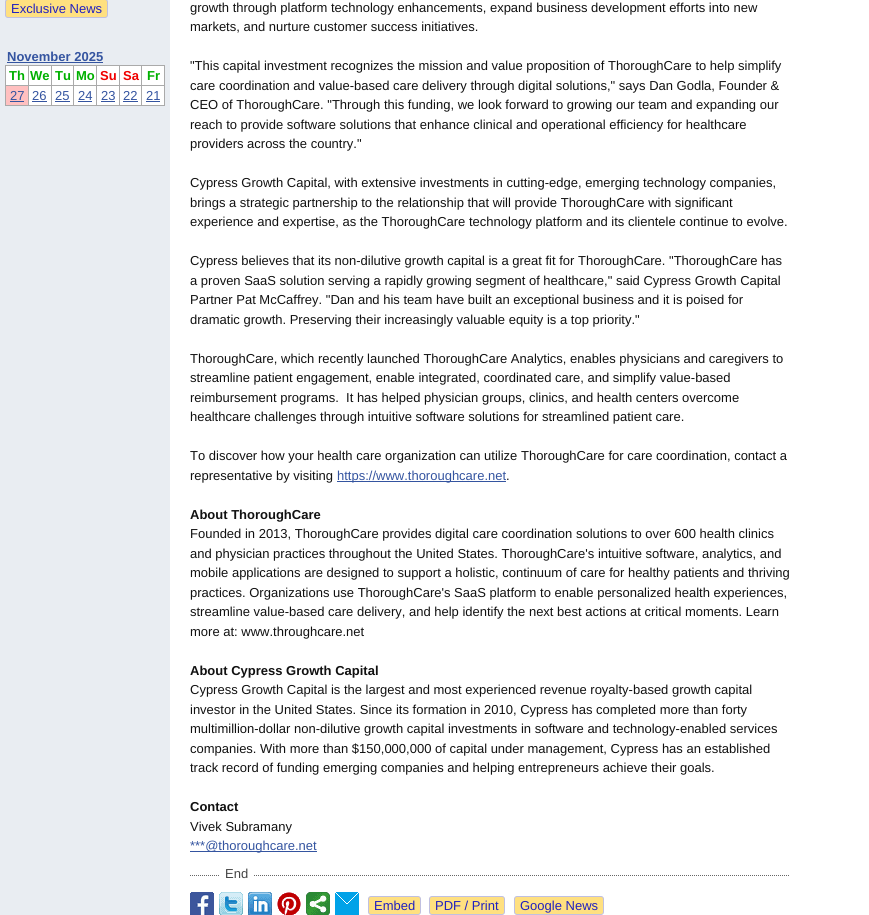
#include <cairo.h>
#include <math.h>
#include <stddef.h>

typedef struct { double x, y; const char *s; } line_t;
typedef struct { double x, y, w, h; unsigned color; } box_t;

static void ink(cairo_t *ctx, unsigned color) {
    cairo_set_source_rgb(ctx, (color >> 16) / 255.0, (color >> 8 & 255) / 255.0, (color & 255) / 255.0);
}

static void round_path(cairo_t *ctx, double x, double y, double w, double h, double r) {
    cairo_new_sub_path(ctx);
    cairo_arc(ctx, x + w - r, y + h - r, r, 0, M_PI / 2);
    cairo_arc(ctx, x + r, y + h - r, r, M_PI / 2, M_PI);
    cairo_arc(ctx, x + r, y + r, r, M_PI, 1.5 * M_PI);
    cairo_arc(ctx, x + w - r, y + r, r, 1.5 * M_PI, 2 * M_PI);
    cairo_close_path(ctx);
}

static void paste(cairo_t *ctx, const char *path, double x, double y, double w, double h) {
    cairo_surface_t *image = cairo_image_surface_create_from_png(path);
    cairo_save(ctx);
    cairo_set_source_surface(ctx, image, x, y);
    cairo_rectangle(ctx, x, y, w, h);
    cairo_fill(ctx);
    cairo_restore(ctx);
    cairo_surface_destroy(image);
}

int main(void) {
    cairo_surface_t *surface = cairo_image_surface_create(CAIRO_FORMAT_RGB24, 869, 915);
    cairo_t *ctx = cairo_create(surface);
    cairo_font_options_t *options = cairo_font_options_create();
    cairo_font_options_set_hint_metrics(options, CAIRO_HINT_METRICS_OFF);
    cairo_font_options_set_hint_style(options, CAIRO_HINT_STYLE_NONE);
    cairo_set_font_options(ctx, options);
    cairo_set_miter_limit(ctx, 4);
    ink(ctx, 0xFFFFFF);
    cairo_paint(ctx);
    ink(ctx, 0xE9EDF2);
    cairo_rectangle(ctx, 0, 0, 170, 915);
    cairo_fill(ctx);
    ink(ctx, 0xFFE080);
    round_path(ctx, 5.5, -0.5, 102, 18, 2.5);
    cairo_fill_preserve(ctx);
    ink(ctx, 0xC0C0E0);
    cairo_set_line_width(ctx, 1);
    cairo_stroke(ctx);
    cairo_select_font_face(ctx, "Liberation Sans", CAIRO_FONT_SLANT_NORMAL, CAIRO_FONT_WEIGHT_NORMAL);
    cairo_set_font_size(ctx, 13);
    ink(ctx, 0x2020C0);
    cairo_move_to(ctx, 11, 13);
    cairo_show_text(ctx, "Exclusive News");
    cairo_select_font_face(ctx, "Liberation Sans", CAIRO_FONT_SLANT_NORMAL, CAIRO_FONT_WEIGHT_BOLD);
    ink(ctx, 0x3454A0);
    cairo_move_to(ctx, 7, 61);
    cairo_show_text(ctx, "November 2025");
    {
        static const box_t items[] = {
            {7, 62, 96, 1, 0x3454A0},
            {6, 66, 22, 19, 0xFFFFFF},
            {141, 65, 24, 1, 0xAAAAAA},
            {141, 85, 24, 1, 0xAAAAAA},
            {164, 85, 1, 21, 0xAAAAAA},
            {141, 105, 24, 1, 0xAAAAAA},
            {141, 85, 1, 21, 0xAAAAAA},
            {119, 85, 23, 1, 0xAAAAAA},
            {141, 65, 1, 21, 0xAAAAAA},
            {119, 65, 23, 1, 0xAAAAAA},
            {119, 105, 23, 1, 0xAAAAAA},
            {119, 85, 1, 21, 0xAAAAAA},
            {96, 85, 24, 1, 0xAAAAAA},
            {119, 65, 1, 21, 0xAAAAAA},
            {96, 65, 24, 1, 0xAAAAAA},
            {96, 105, 24, 1, 0xAAAAAA},
            {96, 85, 1, 21, 0xAAAAAA},
            {73, 85, 24, 1, 0xAAAAAA},
            {96, 65, 1, 21, 0xAAAAAA},
            {73, 65, 24, 1, 0xAAAAAA},
            {73, 105, 24, 1, 0xAAAAAA},
            {73, 85, 1, 21, 0xAAAAAA},
            {51, 85, 23, 1, 0xAAAAAA},
            {73, 65, 1, 21, 0xAAAAAA},
            {51, 65, 23, 1, 0xAAAAAA},
            {51, 105, 23, 1, 0xAAAAAA},
            {51, 85, 1, 21, 0xAAAAAA},
            {28, 85, 24, 1, 0xAAAAAA},
            {51, 65, 1, 21, 0xAAAAAA},
            {28, 65, 24, 1, 0xAAAAAA},
            {28, 105, 24, 1, 0xAAAAAA},
            {28, 85, 1, 21, 0xAAAAAA},
            {5, 85, 24, 1, 0xAAAAAA},
            {28, 65, 1, 21, 0xAAAAAA},
            {5, 65, 24, 1, 0xAAAAAA},
            {5, 105, 24, 1, 0xAAAAAA},
            {5, 85, 1, 21, 0xAAAAAA},
            {5, 65, 1, 21, 0xAAAAAA},
        };
        for (size_t i = 0; i < sizeof items / sizeof *items; i++) {
            ink(ctx, items[i].color);
            cairo_rectangle(ctx, items[i].x, items[i].y, items[i].w, items[i].h);
            cairo_fill(ctx);
        }
    }
    ink(ctx, 0x00B000);
    cairo_move_to(ctx, 9, 80);
    cairo_show_text(ctx, "Th");
    ink(ctx, 0xFFFFFF);
    cairo_rectangle(ctx, 29, 66, 22, 19);
    cairo_fill(ctx);
    ink(ctx, 0x00B000);
    cairo_move_to(ctx, 30, 80);
    cairo_show_text(ctx, "We");
    ink(ctx, 0xFFFFFF);
    cairo_rectangle(ctx, 52, 66, 21, 19);
    cairo_fill(ctx);
    ink(ctx, 0x00B000);
    cairo_move_to(ctx, 55, 80);
    cairo_show_text(ctx, "Tu");
    ink(ctx, 0xFFFFFF);
    cairo_rectangle(ctx, 74, 66, 22, 19);
    cairo_fill(ctx);
    ink(ctx, 0x00B000);
    cairo_move_to(ctx, 76, 80);
    cairo_show_text(ctx, "Mo");
    ink(ctx, 0xFFFFFF);
    cairo_rectangle(ctx, 97, 66, 22, 19);
    cairo_fill(ctx);
    ink(ctx, 0xF00000);
    cairo_move_to(ctx, 100, 80);
    cairo_show_text(ctx, "Su");
    ink(ctx, 0xFFFFFF);
    cairo_rectangle(ctx, 120, 66, 21, 19);
    cairo_fill(ctx);
    ink(ctx, 0xF00000);
    cairo_move_to(ctx, 123, 80);
    cairo_show_text(ctx, "Sa");
    ink(ctx, 0xFFFFFF);
    cairo_rectangle(ctx, 142, 66, 22, 19);
    cairo_fill(ctx);
    ink(ctx, 0xAAAAAA);
    cairo_rectangle(ctx, 164, 65, 1, 21);
    cairo_fill(ctx);
    ink(ctx, 0x00B000);
    cairo_move_to(ctx, 147, 80);
    cairo_show_text(ctx, "Fr");
    ink(ctx, 0xFFC0C0);
    cairo_rectangle(ctx, 6, 86, 22, 19);
    cairo_fill(ctx);
    cairo_select_font_face(ctx, "Liberation Sans", CAIRO_FONT_SLANT_NORMAL, CAIRO_FONT_WEIGHT_NORMAL);
    ink(ctx, 0x3454A0);
    cairo_move_to(ctx, 10, 100);
    cairo_show_text(ctx, "27");
    cairo_rectangle(ctx, 10, 101, 14, 1);
    cairo_fill(ctx);
    ink(ctx, 0xFFFFFF);
    cairo_rectangle(ctx, 29, 86, 22, 19);
    cairo_fill(ctx);
    ink(ctx, 0x3454A0);
    cairo_move_to(ctx, 32, 100);
    cairo_show_text(ctx, "26");
    cairo_rectangle(ctx, 32, 101, 15, 1);
    cairo_fill(ctx);
    ink(ctx, 0xFFFFFF);
    cairo_rectangle(ctx, 52, 86, 21, 19);
    cairo_fill(ctx);
    ink(ctx, 0x3454A0);
    cairo_move_to(ctx, 55, 100);
    cairo_show_text(ctx, "25");
    cairo_rectangle(ctx, 55, 101, 15, 1);
    cairo_fill(ctx);
    ink(ctx, 0xFFFFFF);
    cairo_rectangle(ctx, 74, 86, 22, 19);
    cairo_fill(ctx);
    ink(ctx, 0x3454A0);
    cairo_move_to(ctx, 78, 100);
    cairo_show_text(ctx, "24");
    cairo_rectangle(ctx, 78, 101, 14, 1);
    cairo_fill(ctx);
    ink(ctx, 0xFFFFFF);
    cairo_rectangle(ctx, 97, 86, 22, 19);
    cairo_fill(ctx);
    ink(ctx, 0x3454A0);
    cairo_move_to(ctx, 101, 100);
    cairo_show_text(ctx, "23");
    cairo_rectangle(ctx, 101, 101, 14, 1);
    cairo_fill(ctx);
    ink(ctx, 0xFFFFFF);
    cairo_rectangle(ctx, 120, 86, 21, 19);
    cairo_fill(ctx);
    ink(ctx, 0x3454A0);
    cairo_move_to(ctx, 123, 100);
    cairo_show_text(ctx, "22");
    cairo_rectangle(ctx, 123, 101, 15, 1);
    cairo_fill(ctx);
    ink(ctx, 0xFFFFFF);
    cairo_rectangle(ctx, 142, 86, 22, 19);
    cairo_fill(ctx);
    ink(ctx, 0x3454A0);
    cairo_move_to(ctx, 146, 100);
    cairo_show_text(ctx, "21");
    cairo_rectangle(ctx, 146, 101, 14, 1);
    cairo_fill(ctx);
    ink(ctx, 0x111111);
    {
        static const line_t items[] = {
            {190, 12, "growth through platform technology enhancements, expand business development efforts into new"},
            {190, 31, "markets, and nurture customer success initiatives."},
            {190, 70, "\"This capital investment recognizes the mission and value proposition of ThoroughCare to help simplify"},
            {190, 90, "care coordination and value-based care delivery through digital solutions,\" says Dan Godla, Founder &"},
            {190, 109, "CEO of ThoroughCare. \"Through this funding, we look forward to growing our team and expanding our"},
            {190, 129, "reach to provide software solutions that enhance clinical and operational efficiency for healthcare"},
            {190, 148, "providers across the country.\""},
            {190, 187, "Cypress Growth Capital, with extensive investments in cutting-edge, emerging technology companies,"},
            {190, 207, "brings a strategic partnership to the relationship that will provide ThoroughCare with significant"},
            {190, 226, "experience and expertise, as the ThoroughCare technology platform and its clientele continue to evolve."},
            {190, 265, "Cypress believes that its non-dilutive growth capital is a great fit for ThoroughCare. \"ThoroughCare has"},
            {190, 285, "a proven SaaS solution serving a rapidly growing segment of healthcare,\" said Cypress Growth Capital"},
            {190, 304, "Partner Pat McCaffrey. \"Dan and his team have built an exceptional business and it is poised for"},
            {190, 324, "dramatic growth. Preserving their increasingly valuable equity is a top priority.\""},
            {190, 363, "ThoroughCare, which recently launched ThoroughCare Analytics, enables physicians and caregivers to"},
            {190, 382, "streamline patient engagement, enable integrated, coordinated care, and simplify value-based"},
            {190, 402, "reimbursement programs.  It has helped physician groups, clinics, and health centers overcome"},
            {190, 421, "healthcare challenges through intuitive software solutions for streamlined patient care."},
            {190, 460, "To discover how your health care organization can utilize ThoroughCare for care coordination, contact a"},
            {190, 480, "representative by visiting"},
        };
        for (size_t i = 0; i < sizeof items / sizeof *items; i++) {
            cairo_move_to(ctx, items[i].x, items[i].y);
            cairo_show_text(ctx, items[i].s);
        }
    }
    ink(ctx, 0x3454A0);
    cairo_rectangle(ctx, 337, 481, 169, 1);
    cairo_fill(ctx);
    cairo_move_to(ctx, 337, 480);
    cairo_show_text(ctx, "https://www.thoroughcare.net");
    ink(ctx, 0x111111);
    cairo_move_to(ctx, 506, 480);
    cairo_show_text(ctx, ".");
    cairo_select_font_face(ctx, "Liberation Sans", CAIRO_FONT_SLANT_NORMAL, CAIRO_FONT_WEIGHT_BOLD);
    cairo_move_to(ctx, 190, 519);
    cairo_show_text(ctx, "About ThoroughCare");
    cairo_select_font_face(ctx, "Liberation Sans", CAIRO_FONT_SLANT_NORMAL, CAIRO_FONT_WEIGHT_NORMAL);
    {
        static const line_t items[] = {
            {190, 538, "Founded in 2013, ThoroughCare provides digital care coordination solutions to over 600 health clinics"},
            {190, 558, "and physician practices throughout the United States. ThoroughCare's intuitive software, analytics, and"},
            {190, 577, "mobile applications are designed to support a holistic, continuum of care for healthy patients and thriving"},
            {190, 597, "practices. Organizations use ThoroughCare's SaaS platform to enable personalized health experiences,"},
            {190, 616, "streamline value-based care delivery, and help identify the next best actions at critical moments. Learn"},
            {190, 636, "more at: www.throughcare.net"},
        };
        for (size_t i = 0; i < sizeof items / sizeof *items; i++) {
            cairo_move_to(ctx, items[i].x, items[i].y);
            cairo_show_text(ctx, items[i].s);
        }
    }
    cairo_select_font_face(ctx, "Liberation Sans", CAIRO_FONT_SLANT_NORMAL, CAIRO_FONT_WEIGHT_BOLD);
    cairo_move_to(ctx, 190, 675);
    cairo_show_text(ctx, "About Cypress Growth Capital");
    cairo_select_font_face(ctx, "Liberation Sans", CAIRO_FONT_SLANT_NORMAL, CAIRO_FONT_WEIGHT_NORMAL);
    {
        static const line_t items[] = {
            {190, 694, "Cypress Growth Capital is the largest and most experienced revenue royalty-based growth capital"},
            {190, 714, "investor in the United States. Since its formation in 2010, Cypress has completed more than forty"},
            {190, 733, "multimillion-dollar non-dilutive growth capital investments in software and technology-enabled services"},
            {190, 753, "companies. With more than $150,000,000 of capital under management, Cypress has an established"},
            {190, 772, "track record of funding emerging companies and helping entrepreneurs achieve their goals."},
        };
        for (size_t i = 0; i < sizeof items / sizeof *items; i++) {
            cairo_move_to(ctx, items[i].x, items[i].y);
            cairo_show_text(ctx, items[i].s);
        }
    }
    cairo_select_font_face(ctx, "Liberation Sans", CAIRO_FONT_SLANT_NORMAL, CAIRO_FONT_WEIGHT_BOLD);
    cairo_move_to(ctx, 190, 811);
    cairo_show_text(ctx, "Contact");
    cairo_select_font_face(ctx, "Liberation Sans", CAIRO_FONT_SLANT_NORMAL, CAIRO_FONT_WEIGHT_NORMAL);
    cairo_move_to(ctx, 190, 831);
    cairo_show_text(ctx, "Vivek Subramany");
    ink(ctx, 0x3454A0);
    cairo_rectangle(ctx, 190, 851, 127, 1);
    cairo_fill(ctx);
    cairo_move_to(ctx, 190, 850);
    cairo_show_text(ctx, "***@thoroughcare.net");
    cairo_new_path(ctx);
    cairo_move_to(ctx, 190, 875.5);
    cairo_line_to(ctx, 790, 875.5);
    ink(ctx, 0x666666);
    cairo_set_dash(ctx, (double[]){1, 1}, 2, 0);
    cairo_stroke(ctx);
    ink(ctx, 0xFFFFFF);
    cairo_rectangle(ctx, 220, 875, 33, 1);
    cairo_fill(ctx);
    ink(ctx, 0x444444);
    cairo_move_to(ctx, 225, 878);
    cairo_show_text(ctx, "End");
    paste(ctx, "media/1.png", 190, 892, 24, 23);
    paste(ctx, "media/2.png", 219, 892, 24, 23);
    paste(ctx, "media/3.png", 248, 892, 24, 23);
    paste(ctx, "media/4.png", 277, 892, 24, 23);
    paste(ctx, "media/5.png", 306, 892, 24, 23);
    paste(ctx, "media/6.png", 335, 892, 24, 23);
    ink(ctx, 0xFFE080);
    round_path(ctx, 368.5, 896.5, 52, 18, 2.5);
    cairo_fill_preserve(ctx);
    ink(ctx, 0xC0C0E0);
    cairo_set_dash(ctx, NULL, 0, 0);
    cairo_stroke(ctx);
    ink(ctx, 0x2020C0);
    cairo_move_to(ctx, 374, 910);
    cairo_show_text(ctx, "Embed");
    ink(ctx, 0xFFE080);
    round_path(ctx, 429.5, 896.5, 75, 18, 2.5);
    cairo_fill_preserve(ctx);
    ink(ctx, 0xC0C0E0);
    cairo_stroke(ctx);
    ink(ctx, 0x2020C0);
    cairo_move_to(ctx, 435, 910);
    cairo_show_text(ctx, "PDF / Print");
    ink(ctx, 0xFFE080);
    round_path(ctx, 514.5, 896.5, 89, 18, 2.5);
    cairo_fill_preserve(ctx);
    ink(ctx, 0xC0C0E0);
    cairo_stroke(ctx);
    ink(ctx, 0x2020C0);
    cairo_move_to(ctx, 520, 910);
    cairo_show_text(ctx, "Google News");
    cairo_surface_write_to_png(surface, "image.png");
    cairo_font_options_destroy(options);
    cairo_destroy(ctx);
    cairo_surface_destroy(surface);
    return 0;
}
